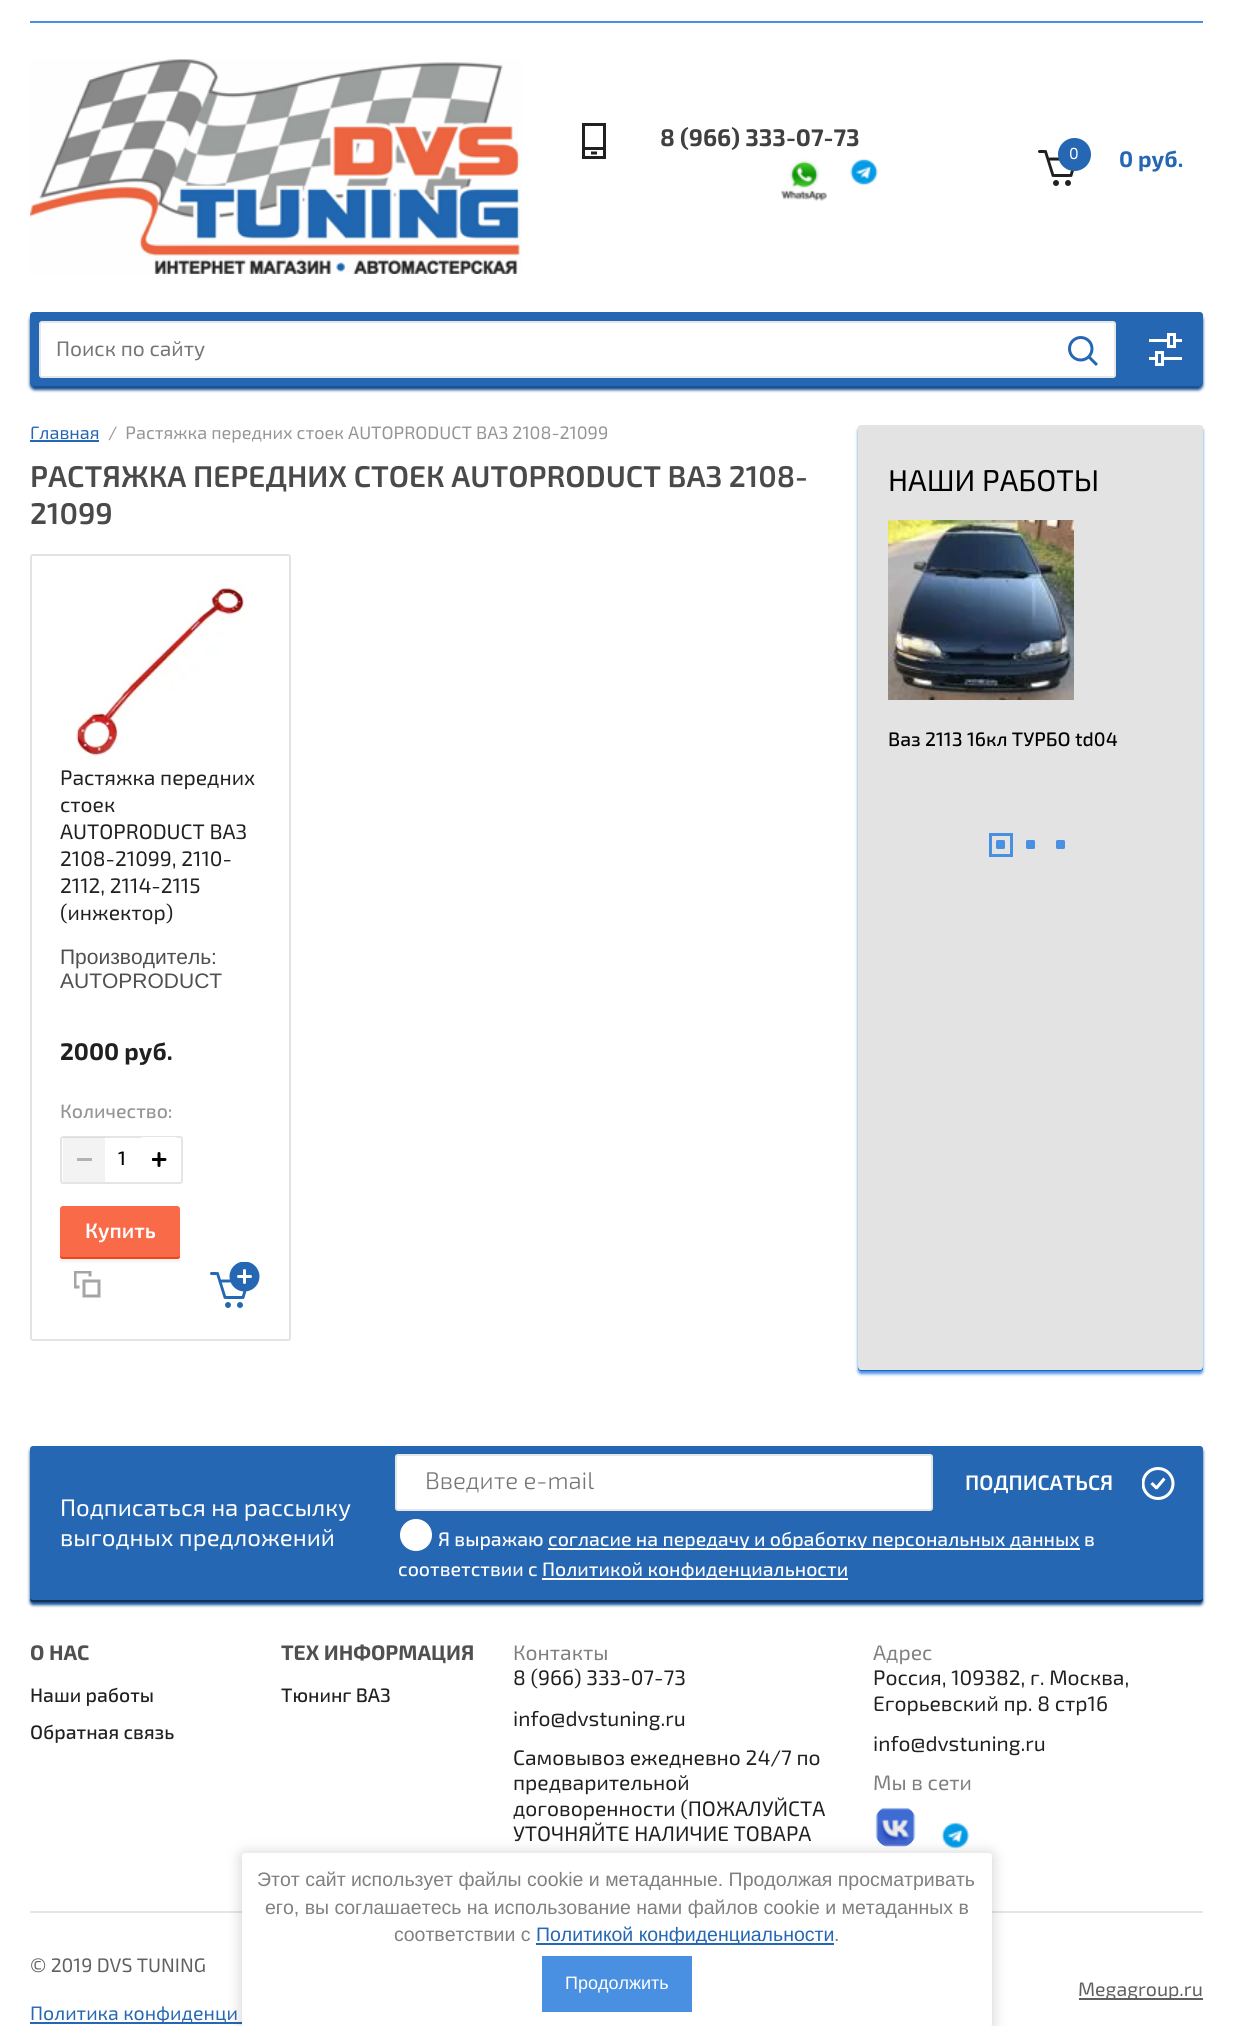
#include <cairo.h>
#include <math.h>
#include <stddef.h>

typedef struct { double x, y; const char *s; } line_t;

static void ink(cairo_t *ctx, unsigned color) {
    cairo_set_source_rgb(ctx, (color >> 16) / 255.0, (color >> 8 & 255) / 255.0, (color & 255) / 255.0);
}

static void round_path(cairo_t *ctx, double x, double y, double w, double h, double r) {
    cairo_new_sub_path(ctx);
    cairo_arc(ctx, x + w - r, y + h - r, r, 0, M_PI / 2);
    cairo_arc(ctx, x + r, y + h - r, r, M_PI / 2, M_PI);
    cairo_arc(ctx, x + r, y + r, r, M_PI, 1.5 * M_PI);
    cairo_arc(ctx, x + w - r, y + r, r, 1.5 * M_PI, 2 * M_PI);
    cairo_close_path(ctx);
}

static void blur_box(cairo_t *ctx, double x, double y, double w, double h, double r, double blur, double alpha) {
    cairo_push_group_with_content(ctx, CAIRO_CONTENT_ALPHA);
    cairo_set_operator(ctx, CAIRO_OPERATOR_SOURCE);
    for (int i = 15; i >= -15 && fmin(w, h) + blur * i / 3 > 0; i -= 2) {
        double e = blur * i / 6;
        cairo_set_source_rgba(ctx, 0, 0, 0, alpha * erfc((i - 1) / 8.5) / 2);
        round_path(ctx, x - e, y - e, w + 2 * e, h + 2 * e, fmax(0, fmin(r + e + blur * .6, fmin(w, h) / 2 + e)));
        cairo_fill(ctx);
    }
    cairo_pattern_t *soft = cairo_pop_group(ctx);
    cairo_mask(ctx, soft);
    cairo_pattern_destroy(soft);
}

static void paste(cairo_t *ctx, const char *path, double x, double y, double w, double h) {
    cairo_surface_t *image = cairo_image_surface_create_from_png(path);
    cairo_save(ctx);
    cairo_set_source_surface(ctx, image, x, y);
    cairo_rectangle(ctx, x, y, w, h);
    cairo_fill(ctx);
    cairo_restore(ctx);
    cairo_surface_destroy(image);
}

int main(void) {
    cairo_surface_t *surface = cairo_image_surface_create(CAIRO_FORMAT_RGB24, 1233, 2026);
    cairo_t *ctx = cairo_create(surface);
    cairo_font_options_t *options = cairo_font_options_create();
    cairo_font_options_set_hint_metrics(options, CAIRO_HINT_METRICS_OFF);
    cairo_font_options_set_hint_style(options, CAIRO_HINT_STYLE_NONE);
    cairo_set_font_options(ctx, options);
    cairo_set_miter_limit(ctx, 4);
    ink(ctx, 0xFFFFFF);
    cairo_paint(ctx);
    ink(ctx, 0x4A90E2);
    cairo_rectangle(ctx, 30, 21, 1173, 2);
    cairo_fill(ctx);
    paste(ctx, "media/1.png", 30, 59, 492, 215);
    paste(ctx, "media/2.png", 582, 123, 24, 36);
    cairo_select_font_face(ctx, "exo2", CAIRO_FONT_SLANT_NORMAL, CAIRO_FONT_WEIGHT_BOLD);
    cairo_set_font_size(ctx, 24);
    ink(ctx, 0x404040);
    cairo_move_to(ctx, 660, 146);
    cairo_show_text(ctx, "8 (966) 333-07-73");
    paste(ctx, "media/3.png", 781, 159, 46, 42);
    paste(ctx, "media/4.png", 850, 158, 28, 28);
    paste(ctx, "media/5.png", 1038, 150, 36, 36);
    ink(ctx, 0x2567B3);
    cairo_arc(ctx, 1074.5, 154.5, 16.5, 0, 2 * M_PI);
    cairo_fill(ctx);
    cairo_select_font_face(ctx, "exo2", CAIRO_FONT_SLANT_NORMAL, CAIRO_FONT_WEIGHT_NORMAL);
    cairo_set_font_size(ctx, 16);
    ink(ctx, 0xFFFFFF);
    cairo_move_to(ctx, 1069, 159);
    cairo_show_text(ctx, "0");
    cairo_select_font_face(ctx, "exo2", CAIRO_FONT_SLANT_NORMAL, CAIRO_FONT_WEIGHT_BOLD);
    cairo_set_font_size(ctx, 22.5);
    ink(ctx, 0x2567B3);
    cairo_move_to(ctx, 1119, 167);
    cairo_show_text(ctx, "0 руб.");
    ink(ctx, 0x114B90);
    blur_box(ctx, 30, 315, 1173, 75, 5, 1.5, 1);
    ink(ctx, 0x2567B3);
    cairo_new_path(ctx);
    cairo_move_to(ctx, 33, 312);
    cairo_line_to(ctx, 1200, 312);
    cairo_curve_to(ctx, 1201.5, 312, 1203, 313.5, 1203, 315);
    cairo_line_to(ctx, 1203, 382);
    cairo_curve_to(ctx, 1203, 385, 1201, 387, 1198, 387);
    cairo_line_to(ctx, 35, 387);
    cairo_curve_to(ctx, 32, 387, 30, 385, 30, 382);
    cairo_line_to(ctx, 30, 315);
    cairo_curve_to(ctx, 30, 313.5, 31.5, 312, 33, 312);
    cairo_close_path(ctx);
    cairo_fill(ctx);
    cairo_set_source_rgba(ctx, 0, 0, 0, 0.2);
    cairo_new_path(ctx);
    cairo_move_to(ctx, 30, 381);
    cairo_curve_to(ctx, 30, 384, 32, 387, 35, 387);
    cairo_line_to(ctx, 1198, 387);
    cairo_curve_to(ctx, 1201, 387, 1203, 384, 1203, 381);
    cairo_curve_to(ctx, 1203, 383, 1201, 386, 1198, 386);
    cairo_line_to(ctx, 34, 386);
    cairo_curve_to(ctx, 32, 386, 30, 383, 30, 381);
    cairo_close_path(ctx);
    cairo_fill(ctx);
    ink(ctx, 0xFFFFFF);
    round_path(ctx, 39, 321, 1077, 57, 3);
    cairo_fill(ctx);
    round_path(ctx, 40, 322, 1075, 55, 2);
    cairo_set_source_rgba(ctx, 0, 0, 0, 0.1);
    cairo_stroke(ctx);
    cairo_select_font_face(ctx, "exo2", CAIRO_FONT_SLANT_NORMAL, CAIRO_FONT_WEIGHT_NORMAL);
    cairo_set_font_size(ctx, 21);
    ink(ctx, 0x757575);
    cairo_move_to(ctx, 56, 356);
    cairo_show_text(ctx, "Поиск по сайту");
    paste(ctx, "media/6.png", 1068, 336, 30, 30);
    paste(ctx, "media/7.png", 1149, 333, 33, 33);
    cairo_set_font_size(ctx, 18);
    ink(ctx, 0x2567B3);
    cairo_move_to(ctx, 30, 439);
    cairo_show_text(ctx, "Главная");
    cairo_rectangle(ctx, 30, 440, 69, 2);
    cairo_fill(ctx);
    ink(ctx, 0x959595);
    cairo_move_to(ctx, 108, 439);
    cairo_show_text(ctx, "/  Растяжка передних стоек AUTOPRODUCT ВАЗ 2108-21099");
    cairo_select_font_face(ctx, "Exo 2 SemiBold", CAIRO_FONT_SLANT_NORMAL, CAIRO_FONT_WEIGHT_NORMAL);
    cairo_set_font_size(ctx, 30);
    ink(ctx, 0x4A4A4A);
    cairo_move_to(ctx, 30, 487);
    cairo_show_text(ctx, "РАСТЯЖКА ПЕРЕДНИХ СТОЕК AUTOPRODUCT ВАЗ 2108-");
    cairo_move_to(ctx, 30, 524);
    cairo_show_text(ctx, "21099");
    round_path(ctx, 31, 555, 259, 785, 2);
    ink(ctx, 0xE3E3E3);
    cairo_stroke(ctx);
    paste(ctx, "media/8.png", 76, 583, 171, 176);
    cairo_select_font_face(ctx, "exo2", CAIRO_FONT_SLANT_NORMAL, CAIRO_FONT_WEIGHT_NORMAL);
    cairo_set_font_size(ctx, 21);
    ink(ctx, 0x202020);
    {
        static const line_t items[] = {
            {60, 785, "Растяжка передних"},
            {60, 812, "стоек"},
            {60, 839, "AUTOPRODUCT ВАЗ"},
            {60, 866, "2108-21099, 2110-"},
            {60, 893, "2112, 2114-2115"},
            {60, 920, "(инжектор)"},
        };
        for (size_t i = 0; i < sizeof items / sizeof *items; i++) {
            cairo_move_to(ctx, items[i].x, items[i].y);
            cairo_show_text(ctx, items[i].s);
        }
    }
    cairo_select_font_face(ctx, "Liberation Sans", CAIRO_FONT_SLANT_NORMAL, CAIRO_FONT_WEIGHT_NORMAL);
    ink(ctx, 0x505050);
    cairo_move_to(ctx, 60, 964);
    cairo_show_text(ctx, "Производитель:");
    cairo_move_to(ctx, 60, 988);
    cairo_show_text(ctx, "AUTOPRODUCT");
    cairo_select_font_face(ctx, "exo2", CAIRO_FONT_SLANT_NORMAL, CAIRO_FONT_WEIGHT_BOLD);
    cairo_set_font_size(ctx, 24);
    ink(ctx, 0x202020);
    cairo_move_to(ctx, 60, 1060);
    cairo_show_text(ctx, "2000 руб.");
    cairo_select_font_face(ctx, "Exo 2 Medium", CAIRO_FONT_SLANT_NORMAL, CAIRO_FONT_WEIGHT_NORMAL);
    cairo_set_font_size(ctx, 19.5);
    ink(ctx, 0x959595);
    cairo_move_to(ctx, 60, 1118);
    cairo_show_text(ctx, "Количество:");
    round_path(ctx, 61, 1137, 121, 46, 2);
    ink(ctx, 0xE5E5E5);
    cairo_stroke(ctx);
    cairo_set_source_rgba(ctx, 0, 0, 0, 0.05);
    cairo_rectangle(ctx, 63, 1137, 42, 45);
    cairo_fill(ctx);
    ink(ctx, 0xB3B3B3);
    cairo_rectangle(ctx, 77, 1158, 15, 3);
    cairo_fill(ctx);
    ink(ctx, 0x000000);
    cairo_move_to(ctx, 118, 1165);
    cairo_show_text(ctx, "1");
    ink(ctx, 0xFFFFFF);
    round_path(ctx, 138, 1137, 42, 45, 6);
    cairo_fill(ctx);
    paste(ctx, "media/9.png", 152, 1152, 15, 15);
    ink(ctx, 0x000000);
    blur_box(ctx, 60, 1209, 120, 53, 3, 1.5, 0.05);
    ink(ctx, 0xF96A48);
    round_path(ctx, 60, 1206, 120, 53, 3);
    cairo_fill(ctx);
    ink(ctx, 0xF74217);
    cairo_new_path(ctx);
    cairo_move_to(ctx, 60, 1254);
    cairo_line_to(ctx, 60, 1256);
    cairo_curve_to(ctx, 60, 1258, 61, 1259, 63, 1259);
    cairo_line_to(ctx, 177, 1259);
    cairo_curve_to(ctx, 179, 1259, 180, 1258, 180, 1256);
    cairo_line_to(ctx, 180, 1254);
    cairo_curve_to(ctx, 180, 1256, 179, 1257, 177, 1257);
    cairo_line_to(ctx, 63, 1257);
    cairo_curve_to(ctx, 61, 1257, 60, 1256, 60, 1254);
    cairo_close_path(ctx);
    cairo_fill(ctx);
    cairo_select_font_face(ctx, "Exo 2 SemiBold", CAIRO_FONT_SLANT_NORMAL, CAIRO_FONT_WEIGHT_NORMAL);
    cairo_set_font_size(ctx, 21);
    ink(ctx, 0xFFFFFF);
    cairo_move_to(ctx, 85, 1238);
    cairo_show_text(ctx, "Купить");
    paste(ctx, "media/10.png", 74, 1271, 27, 27);
    paste(ctx, "media/11.png", 210, 1262, 50, 46);
    ink(ctx, 0x4A90E2);
    blur_box(ctx, 858, 428, 345, 946, 3, 1.5, 1);
    ink(ctx, 0xE3E3E3);
    round_path(ctx, 858, 425, 345, 946, 3);
    cairo_fill(ctx);
    ink(ctx, 0x1465C6);
    cairo_new_path(ctx);
    cairo_move_to(ctx, 858, 1366);
    cairo_line_to(ctx, 858, 1368);
    cairo_curve_to(ctx, 858, 1370, 859, 1371, 861, 1371);
    cairo_line_to(ctx, 1200, 1371);
    cairo_curve_to(ctx, 1202, 1371, 1203, 1370, 1203, 1368);
    cairo_line_to(ctx, 1203, 1366);
    cairo_curve_to(ctx, 1203, 1368, 1202, 1370, 1200, 1370);
    cairo_line_to(ctx, 861, 1370);
    cairo_curve_to(ctx, 859, 1370, 858, 1368, 858, 1366);
    cairo_close_path(ctx);
    cairo_fill(ctx);
    cairo_select_font_face(ctx, "exo2", CAIRO_FONT_SLANT_NORMAL, CAIRO_FONT_WEIGHT_NORMAL);
    cairo_set_font_size(ctx, 30);
    ink(ctx, 0x000000);
    cairo_move_to(ctx, 888, 491);
    cairo_show_text(ctx, "НАШИ РАБОТЫ");
    paste(ctx, "media/12.png", 888, 520, 186, 180);
    cairo_select_font_face(ctx, "Exo 2 Medium", CAIRO_FONT_SLANT_NORMAL, CAIRO_FONT_WEIGHT_NORMAL);
    cairo_set_font_size(ctx, 19.5);
    cairo_move_to(ctx, 888, 746);
    cairo_show_text(ctx, "Ваз 2113 16кл ТУРБО td04");
    cairo_rectangle(ctx, 990.5, 834.5, 21, 21);
    ink(ctx, 0x4A90E2);
    cairo_set_line_width(ctx, 3);
    cairo_stroke(ctx);
    round_path(ctx, 996, 840, 9, 9, 1.5);
    cairo_fill(ctx);
    round_path(ctx, 1026, 840, 9, 9, 1.5);
    cairo_fill(ctx);
    round_path(ctx, 1056, 840, 9, 9, 1.5);
    cairo_fill(ctx);
    ink(ctx, 0x114B90);
    blur_box(ctx, 30, 1449, 1173, 156, 3, 1.5, 1);
    ink(ctx, 0x2567B3);
    round_path(ctx, 30, 1446, 1173, 156, 3);
    cairo_fill(ctx);
    cairo_set_source_rgba(ctx, 0, 0, 0, 0.5);
    cairo_new_path(ctx);
    cairo_move_to(ctx, 30, 1598);
    cairo_line_to(ctx, 30, 1599);
    cairo_curve_to(ctx, 30, 1601, 31, 1602, 33, 1602);
    cairo_line_to(ctx, 1200, 1602);
    cairo_curve_to(ctx, 1202, 1602, 1203, 1601, 1203, 1599);
    cairo_line_to(ctx, 1203, 1598);
    cairo_curve_to(ctx, 1203, 1599, 1202, 1600, 1200, 1600);
    cairo_line_to(ctx, 33, 1600);
    cairo_curve_to(ctx, 31, 1600, 30, 1599, 30, 1598);
    cairo_close_path(ctx);
    cairo_fill(ctx);
    cairo_select_font_face(ctx, "exo2", CAIRO_FONT_SLANT_NORMAL, CAIRO_FONT_WEIGHT_NORMAL);
    cairo_set_font_size(ctx, 24);
    ink(ctx, 0xFFFFFF);
    cairo_move_to(ctx, 60, 1516);
    cairo_show_text(ctx, "Подписаться на рассылку");
    cairo_move_to(ctx, 60, 1546);
    cairo_show_text(ctx, "выгодных предложений");
    round_path(ctx, 395, 1454, 538, 57, 3);
    cairo_fill(ctx);
    round_path(ctx, 396, 1455, 536, 55, 2);
    cairo_set_source_rgba(ctx, 0, 0, 0, 0.1);
    cairo_set_line_width(ctx, 2);
    cairo_stroke(ctx);
    cairo_select_font_face(ctx, "Exo 2 Light", CAIRO_FONT_SLANT_NORMAL, CAIRO_FONT_WEIGHT_NORMAL);
    ink(ctx, 0x757575);
    cairo_move_to(ctx, 425, 1489);
    cairo_show_text(ctx, "Введите e-mail");
    paste(ctx, "media/13.png", 1142, 1467, 33, 33);
    cairo_select_font_face(ctx, "Exo 2 SemiBold", CAIRO_FONT_SLANT_NORMAL, CAIRO_FONT_WEIGHT_NORMAL);
    cairo_set_font_size(ctx, 21);
    ink(ctx, 0xFFFFFF);
    cairo_move_to(ctx, 965, 1490);
    cairo_show_text(ctx, "ПОДПИСАТЬСЯ");
    cairo_new_path(ctx);
    cairo_arc(ctx, 416, 1535, 17, 0, 2 * M_PI);
    cairo_fill_preserve(ctx);
    ink(ctx, 0x2567B3);
    cairo_stroke(ctx);
    cairo_select_font_face(ctx, "Exo 2 Medium", CAIRO_FONT_SLANT_NORMAL, CAIRO_FONT_WEIGHT_NORMAL);
    cairo_set_font_size(ctx, 19.5);
    ink(ctx, 0xFFFFFF);
    cairo_move_to(ctx, 438, 1546);
    cairo_show_text(ctx, "Я выражаю");
    cairo_rectangle(ctx, 548, 1548, 532, 2);
    cairo_fill(ctx);
    cairo_move_to(ctx, 548, 1546);
    cairo_show_text(ctx, "согласие на передачу и обработку персональных данных в");
    cairo_move_to(ctx, 398, 1576);
    cairo_show_text(ctx, "соответствии с");
    cairo_rectangle(ctx, 542, 1578, 306, 2);
    cairo_fill(ctx);
    cairo_move_to(ctx, 542, 1576);
    cairo_show_text(ctx, "Политикой конфиденциальности");
    cairo_select_font_face(ctx, "exo2", CAIRO_FONT_SLANT_NORMAL, CAIRO_FONT_WEIGHT_BOLD);
    cairo_set_font_size(ctx, 21);
    ink(ctx, 0x505050);
    cairo_move_to(ctx, 30, 1660);
    cairo_show_text(ctx, "О НАС");
    cairo_select_font_face(ctx, "Exo 2 Medium", CAIRO_FONT_SLANT_NORMAL, CAIRO_FONT_WEIGHT_NORMAL);
    cairo_set_font_size(ctx, 19.5);
    ink(ctx, 0x202020);
    cairo_move_to(ctx, 30, 1702);
    cairo_show_text(ctx, "Наши работы");
    cairo_move_to(ctx, 30, 1739);
    cairo_show_text(ctx, "Обратная связь");
    cairo_select_font_face(ctx, "exo2", CAIRO_FONT_SLANT_NORMAL, CAIRO_FONT_WEIGHT_BOLD);
    cairo_set_font_size(ctx, 21);
    ink(ctx, 0x505050);
    cairo_move_to(ctx, 281, 1660);
    cairo_show_text(ctx, "ТЕХ ИНФОРМАЦИЯ");
    cairo_select_font_face(ctx, "Exo 2 Medium", CAIRO_FONT_SLANT_NORMAL, CAIRO_FONT_WEIGHT_NORMAL);
    cairo_set_font_size(ctx, 19.5);
    ink(ctx, 0x202020);
    cairo_move_to(ctx, 281, 1702);
    cairo_show_text(ctx, "Тюнинг ВАЗ");
    cairo_select_font_face(ctx, "exo2", CAIRO_FONT_SLANT_NORMAL, CAIRO_FONT_WEIGHT_NORMAL);
    cairo_set_font_size(ctx, 21);
    ink(ctx, 0x808080);
    cairo_move_to(ctx, 513, 1660);
    cairo_show_text(ctx, "Контакты");
    ink(ctx, 0x202020);
    {
        static const line_t items[] = {
            {513, 1685, "8 (966) 333-07-73"},
            {513, 1726, "info@dvstuning.ru"},
            {513, 1765, "Самовывоз ежедневно 24/7 по"},
            {513, 1790, "предварительной"},
            {513, 1816, "договоренности (ПОЖАЛУЙСТА"},
            {513, 1841, "УТОЧНЯЙТЕ НАЛИЧИЕ ТОВАРА"},
        };
        for (size_t i = 0; i < sizeof items / sizeof *items; i++) {
            cairo_move_to(ctx, items[i].x, items[i].y);
            cairo_show_text(ctx, items[i].s);
        }
    }
    ink(ctx, 0x808080);
    cairo_move_to(ctx, 873, 1660);
    cairo_show_text(ctx, "Адрес");
    ink(ctx, 0x202020);
    {
        static const line_t items[] = {
            {873, 1685, "Россия, 109382, г. Москва,"},
            {873, 1711, "Егорьевский пр. 8 стр16"},
            {873, 1751, "info@dvstuning.ru"},
        };
        for (size_t i = 0; i < sizeof items / sizeof *items; i++) {
            cairo_move_to(ctx, items[i].x, items[i].y);
            cairo_show_text(ctx, items[i].s);
        }
    }
    ink(ctx, 0x808080);
    cairo_move_to(ctx, 873, 1790);
    cairo_show_text(ctx, "Мы в сети");
    paste(ctx, "media/14.png", 875, 1807, 41, 40);
    paste(ctx, "media/15.png", 941, 1822, 29, 27);
    ink(ctx, 0xE5E5E5);
    cairo_rectangle(ctx, 30, 1911, 1173, 2);
    cairo_fill(ctx);
    cairo_set_font_size(ctx, 19.5);
    ink(ctx, 0x606060);
    cairo_move_to(ctx, 30, 1972);
    cairo_show_text(ctx, "© 2019 DVS TUNING");
    ink(ctx, 0x2567B3);
    cairo_rectangle(ctx, 30, 2022, 212, 2);
    cairo_fill(ctx);
    cairo_move_to(ctx, 30, 2020);
    cairo_show_text(ctx, "Политика конфиденци");
    ink(ctx, 0x606060);
    cairo_rectangle(ctx, 1079, 1998, 124, 2);
    cairo_fill(ctx);
    cairo_move_to(ctx, 1078, 1996);
    cairo_show_text(ctx, "Megagroup.ru");
    ink(ctx, 0x000000);
    blur_box(ctx, 242, 1854, 750, 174, 3, 7.5, 0.2);
    ink(ctx, 0xFFFFFF);
    round_path(ctx, 242, 1853, 750, 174, 3);
    cairo_fill(ctx);
    cairo_select_font_face(ctx, "Liberation Sans", CAIRO_FONT_SLANT_NORMAL, CAIRO_FONT_WEIGHT_NORMAL);
    ink(ctx, 0x808080);
    {
        static const line_t items[] = {
            {257, 1886, "Этот сайт использует файлы cookie и метаданные. Продолжая просматривать"},
            {265, 1914, "его, вы соглашаетесь на использование нами файлов cookie и метаданных в"},
            {394, 1941, "соответствии с"},
        };
        for (size_t i = 0; i < sizeof items / sizeof *items; i++) {
            cairo_move_to(ctx, items[i].x, items[i].y);
            cairo_show_text(ctx, items[i].s);
        }
    }
    ink(ctx, 0x2567B3);
    cairo_rectangle(ctx, 536, 1943, 298, 2);
    cairo_fill(ctx);
    cairo_move_to(ctx, 536, 1941);
    cairo_show_text(ctx, "Политикой конфиденциальности");
    ink(ctx, 0x808080);
    cairo_move_to(ctx, 834, 1941);
    cairo_show_text(ctx, ".");
    ink(ctx, 0x4A90E2);
    cairo_rectangle(ctx, 542, 1956, 150, 56);
    cairo_fill(ctx);
    cairo_set_font_size(ctx, 18);
    ink(ctx, 0xFFFFFF);
    cairo_move_to(ctx, 565, 1989);
    cairo_show_text(ctx, "Продолжить");
    cairo_surface_write_to_png(surface, "image.png");
    cairo_font_options_destroy(options);
    cairo_destroy(ctx);
    cairo_surface_destroy(surface);
    return 0;
}
